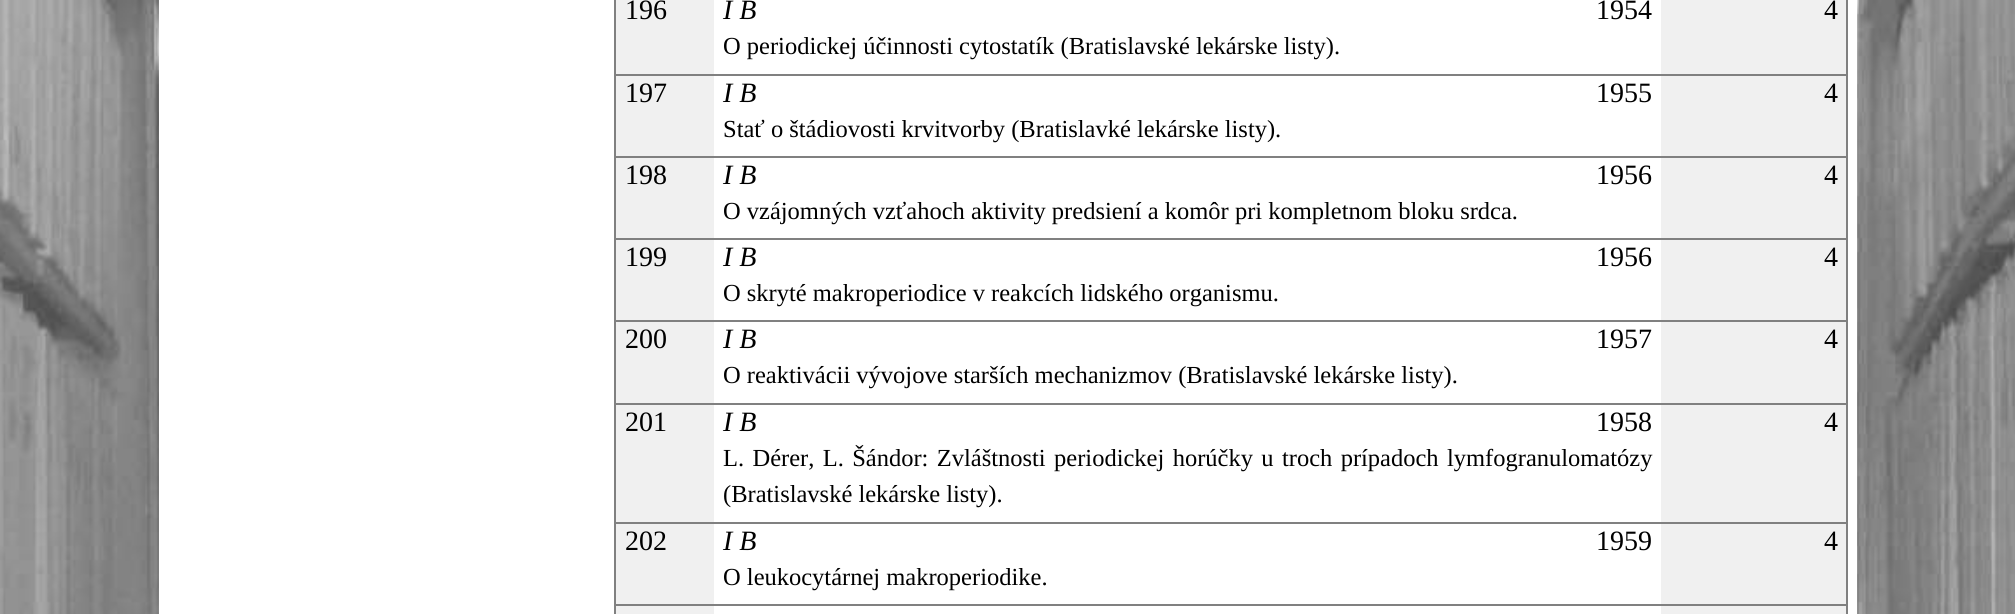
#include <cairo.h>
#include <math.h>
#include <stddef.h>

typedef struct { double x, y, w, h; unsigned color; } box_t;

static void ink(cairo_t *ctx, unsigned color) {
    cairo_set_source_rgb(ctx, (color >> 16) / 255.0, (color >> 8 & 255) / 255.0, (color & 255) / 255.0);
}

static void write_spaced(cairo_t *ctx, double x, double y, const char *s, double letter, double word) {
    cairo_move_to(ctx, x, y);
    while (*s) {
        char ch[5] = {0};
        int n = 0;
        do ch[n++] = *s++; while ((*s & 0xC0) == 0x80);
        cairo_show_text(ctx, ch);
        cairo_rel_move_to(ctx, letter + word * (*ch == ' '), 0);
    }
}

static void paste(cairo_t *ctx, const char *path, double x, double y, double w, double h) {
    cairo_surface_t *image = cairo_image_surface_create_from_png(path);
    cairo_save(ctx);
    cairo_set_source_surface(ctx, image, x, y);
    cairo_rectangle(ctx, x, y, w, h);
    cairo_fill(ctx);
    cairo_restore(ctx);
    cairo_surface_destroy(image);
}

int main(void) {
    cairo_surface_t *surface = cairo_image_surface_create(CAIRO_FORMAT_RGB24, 2015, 614);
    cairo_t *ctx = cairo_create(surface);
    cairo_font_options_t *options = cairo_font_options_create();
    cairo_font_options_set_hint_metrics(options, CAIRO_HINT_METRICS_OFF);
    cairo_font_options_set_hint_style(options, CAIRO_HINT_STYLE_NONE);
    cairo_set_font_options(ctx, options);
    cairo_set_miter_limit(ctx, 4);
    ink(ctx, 0xFFFFFF);
    cairo_paint(ctx);
    paste(ctx, "media/1.png", 0, 0, 2015, 614);
    {
        static const box_t items[] = {
            {159, 0, 1698, 614, 0xFFFFFF},
            {1661, 606, 187, 8, 0xF0F0F0},
            {1846, 0, 2, 614, 0x808080},
            {614, 0, 2, 614, 0x808080},
            {616, 0, 98, 74, 0xF0F0F0},
        };
        for (size_t i = 0; i < sizeof items / sizeof *items; i++) {
            ink(ctx, items[i].color);
            cairo_rectangle(ctx, items[i].x, items[i].y, items[i].w, items[i].h);
            cairo_fill(ctx);
        }
    }
    cairo_select_font_face(ctx, "Liberation Serif", CAIRO_FONT_SLANT_NORMAL, CAIRO_FONT_WEIGHT_NORMAL);
    cairo_set_font_size(ctx, 28);
    ink(ctx, 0x000000);
    cairo_move_to(ctx, 625, 19);
    cairo_show_text(ctx, "196");
    cairo_select_font_face(ctx, "Liberation Serif", CAIRO_FONT_SLANT_ITALIC, CAIRO_FONT_WEIGHT_NORMAL);
    cairo_move_to(ctx, 723, 19);
    cairo_show_text(ctx, "I B");
    cairo_select_font_face(ctx, "Liberation Serif", CAIRO_FONT_SLANT_NORMAL, CAIRO_FONT_WEIGHT_NORMAL);
    cairo_move_to(ctx, 1596, 19);
    cairo_show_text(ctx, "1954");
    ink(ctx, 0xF0F0F0);
    cairo_rectangle(ctx, 1661, 0, 185, 74);
    cairo_fill(ctx);
    ink(ctx, 0x000000);
    cairo_move_to(ctx, 1824, 19);
    cairo_show_text(ctx, "4");
    cairo_set_font_size(ctx, 24.5);
    cairo_move_to(ctx, 723, 54);
    cairo_show_text(ctx, "O periodickej účinnosti cytostatík (Bratislavské lekárske listy).");
    ink(ctx, 0xF0F0F0);
    cairo_rectangle(ctx, 616, 76, 98, 80);
    cairo_fill(ctx);
    cairo_set_font_size(ctx, 28);
    ink(ctx, 0x000000);
    cairo_move_to(ctx, 625, 102);
    cairo_show_text(ctx, "197");
    cairo_select_font_face(ctx, "Liberation Serif", CAIRO_FONT_SLANT_ITALIC, CAIRO_FONT_WEIGHT_NORMAL);
    cairo_move_to(ctx, 723, 102);
    cairo_show_text(ctx, "I B");
    cairo_select_font_face(ctx, "Liberation Serif", CAIRO_FONT_SLANT_NORMAL, CAIRO_FONT_WEIGHT_NORMAL);
    cairo_move_to(ctx, 1596, 102);
    cairo_show_text(ctx, "1955");
    ink(ctx, 0xF0F0F0);
    cairo_rectangle(ctx, 1661, 76, 185, 80);
    cairo_fill(ctx);
    ink(ctx, 0x808080);
    cairo_rectangle(ctx, 614, 74, 1234, 2);
    cairo_fill(ctx);
    ink(ctx, 0x000000);
    cairo_move_to(ctx, 1824, 102);
    cairo_show_text(ctx, "4");
    cairo_set_font_size(ctx, 24.5);
    cairo_move_to(ctx, 723, 137);
    cairo_show_text(ctx, "Stať o štádiovosti krvitvorby (Bratislavké lekárske listy).");
    ink(ctx, 0xF0F0F0);
    cairo_rectangle(ctx, 616, 158, 98, 80);
    cairo_fill(ctx);
    cairo_set_font_size(ctx, 28);
    ink(ctx, 0x000000);
    cairo_move_to(ctx, 625, 184);
    cairo_show_text(ctx, "198");
    cairo_select_font_face(ctx, "Liberation Serif", CAIRO_FONT_SLANT_ITALIC, CAIRO_FONT_WEIGHT_NORMAL);
    cairo_move_to(ctx, 723, 184);
    cairo_show_text(ctx, "I B");
    cairo_select_font_face(ctx, "Liberation Serif", CAIRO_FONT_SLANT_NORMAL, CAIRO_FONT_WEIGHT_NORMAL);
    cairo_move_to(ctx, 1596, 184);
    cairo_show_text(ctx, "1956");
    ink(ctx, 0xF0F0F0);
    cairo_rectangle(ctx, 1661, 158, 185, 80);
    cairo_fill(ctx);
    ink(ctx, 0x808080);
    cairo_rectangle(ctx, 614, 156, 1234, 2);
    cairo_fill(ctx);
    ink(ctx, 0x000000);
    cairo_move_to(ctx, 1824, 184);
    cairo_show_text(ctx, "4");
    cairo_set_font_size(ctx, 24.5);
    cairo_move_to(ctx, 723, 219);
    cairo_show_text(ctx, "O vzájomných vzťahoch aktivity predsiení a komôr pri kompletnom bloku srdca.");
    ink(ctx, 0xF0F0F0);
    cairo_rectangle(ctx, 616, 240, 98, 80);
    cairo_fill(ctx);
    cairo_set_font_size(ctx, 28);
    ink(ctx, 0x000000);
    cairo_move_to(ctx, 625, 266);
    cairo_show_text(ctx, "199");
    cairo_select_font_face(ctx, "Liberation Serif", CAIRO_FONT_SLANT_ITALIC, CAIRO_FONT_WEIGHT_NORMAL);
    cairo_move_to(ctx, 723, 266);
    cairo_show_text(ctx, "I B");
    cairo_select_font_face(ctx, "Liberation Serif", CAIRO_FONT_SLANT_NORMAL, CAIRO_FONT_WEIGHT_NORMAL);
    cairo_move_to(ctx, 1596, 266);
    cairo_show_text(ctx, "1956");
    ink(ctx, 0xF0F0F0);
    cairo_rectangle(ctx, 1661, 240, 185, 80);
    cairo_fill(ctx);
    ink(ctx, 0x808080);
    cairo_rectangle(ctx, 614, 238, 1234, 2);
    cairo_fill(ctx);
    ink(ctx, 0x000000);
    cairo_move_to(ctx, 1824, 266);
    cairo_show_text(ctx, "4");
    cairo_set_font_size(ctx, 24.5);
    cairo_move_to(ctx, 723, 301);
    cairo_show_text(ctx, "O skryté makroperiodice v reakcích lidského organismu.");
    ink(ctx, 0xF0F0F0);
    cairo_rectangle(ctx, 616, 322, 98, 81);
    cairo_fill(ctx);
    cairo_set_font_size(ctx, 28);
    ink(ctx, 0x000000);
    cairo_move_to(ctx, 625, 348);
    cairo_show_text(ctx, "200");
    cairo_select_font_face(ctx, "Liberation Serif", CAIRO_FONT_SLANT_ITALIC, CAIRO_FONT_WEIGHT_NORMAL);
    cairo_move_to(ctx, 723, 348);
    cairo_show_text(ctx, "I B");
    cairo_select_font_face(ctx, "Liberation Serif", CAIRO_FONT_SLANT_NORMAL, CAIRO_FONT_WEIGHT_NORMAL);
    cairo_move_to(ctx, 1596, 348);
    cairo_show_text(ctx, "1957");
    ink(ctx, 0xF0F0F0);
    cairo_rectangle(ctx, 1661, 322, 185, 81);
    cairo_fill(ctx);
    ink(ctx, 0x808080);
    cairo_rectangle(ctx, 614, 320, 1234, 2);
    cairo_fill(ctx);
    ink(ctx, 0x000000);
    cairo_move_to(ctx, 1824, 348);
    cairo_show_text(ctx, "4");
    cairo_set_font_size(ctx, 24.5);
    cairo_move_to(ctx, 723, 383);
    cairo_show_text(ctx, "O reaktivácii vývojove starších mechanizmov (Bratislavské lekárske listy).");
    ink(ctx, 0xF0F0F0);
    cairo_rectangle(ctx, 616, 405, 98, 117);
    cairo_fill(ctx);
    cairo_set_font_size(ctx, 28);
    ink(ctx, 0x000000);
    cairo_move_to(ctx, 625, 431);
    cairo_show_text(ctx, "201");
    cairo_select_font_face(ctx, "Liberation Serif", CAIRO_FONT_SLANT_ITALIC, CAIRO_FONT_WEIGHT_NORMAL);
    cairo_move_to(ctx, 723, 431);
    cairo_show_text(ctx, "I B");
    cairo_select_font_face(ctx, "Liberation Serif", CAIRO_FONT_SLANT_NORMAL, CAIRO_FONT_WEIGHT_NORMAL);
    cairo_move_to(ctx, 1596, 431);
    cairo_show_text(ctx, "1958");
    ink(ctx, 0xF0F0F0);
    cairo_rectangle(ctx, 1661, 405, 185, 117);
    cairo_fill(ctx);
    ink(ctx, 0x808080);
    cairo_rectangle(ctx, 614, 403, 1234, 2);
    cairo_fill(ctx);
    ink(ctx, 0x000000);
    cairo_move_to(ctx, 1824, 431);
    cairo_show_text(ctx, "4");
    cairo_set_font_size(ctx, 24.5);
    write_spaced(ctx, 723, 466, "L. Dérer, L. Šándor: Zvláštnosti periodickej horúčky u troch prípadoch lymfogranulomatózy", 0, 2.25);
    cairo_move_to(ctx, 723, 502);
    cairo_show_text(ctx, "(Bratislavské lekárske listy).");
    ink(ctx, 0xF0F0F0);
    cairo_rectangle(ctx, 616, 524, 98, 80);
    cairo_fill(ctx);
    cairo_set_font_size(ctx, 28);
    ink(ctx, 0x000000);
    cairo_move_to(ctx, 625, 550);
    cairo_show_text(ctx, "202");
    cairo_select_font_face(ctx, "Liberation Serif", CAIRO_FONT_SLANT_ITALIC, CAIRO_FONT_WEIGHT_NORMAL);
    cairo_move_to(ctx, 723, 550);
    cairo_show_text(ctx, "I B");
    cairo_select_font_face(ctx, "Liberation Serif", CAIRO_FONT_SLANT_NORMAL, CAIRO_FONT_WEIGHT_NORMAL);
    cairo_move_to(ctx, 1596, 550);
    cairo_show_text(ctx, "1959");
    ink(ctx, 0xF0F0F0);
    cairo_rectangle(ctx, 1661, 524, 185, 80);
    cairo_fill(ctx);
    ink(ctx, 0x808080);
    cairo_rectangle(ctx, 614, 522, 1234, 2);
    cairo_fill(ctx);
    ink(ctx, 0x000000);
    cairo_move_to(ctx, 1824, 550);
    cairo_show_text(ctx, "4");
    cairo_set_font_size(ctx, 24.5);
    cairo_move_to(ctx, 723, 585);
    cairo_show_text(ctx, "O leukocytárnej makroperiodike.");
    ink(ctx, 0x808080);
    cairo_rectangle(ctx, 614, 604, 1234, 2);
    cairo_fill(ctx);
    ink(ctx, 0xF0F0F0);
    cairo_rectangle(ctx, 616, 606, 98, 8);
    cairo_fill(ctx);
    cairo_surface_write_to_png(surface, "image.png");
    cairo_font_options_destroy(options);
    cairo_destroy(ctx);
    cairo_surface_destroy(surface);
    return 0;
}
